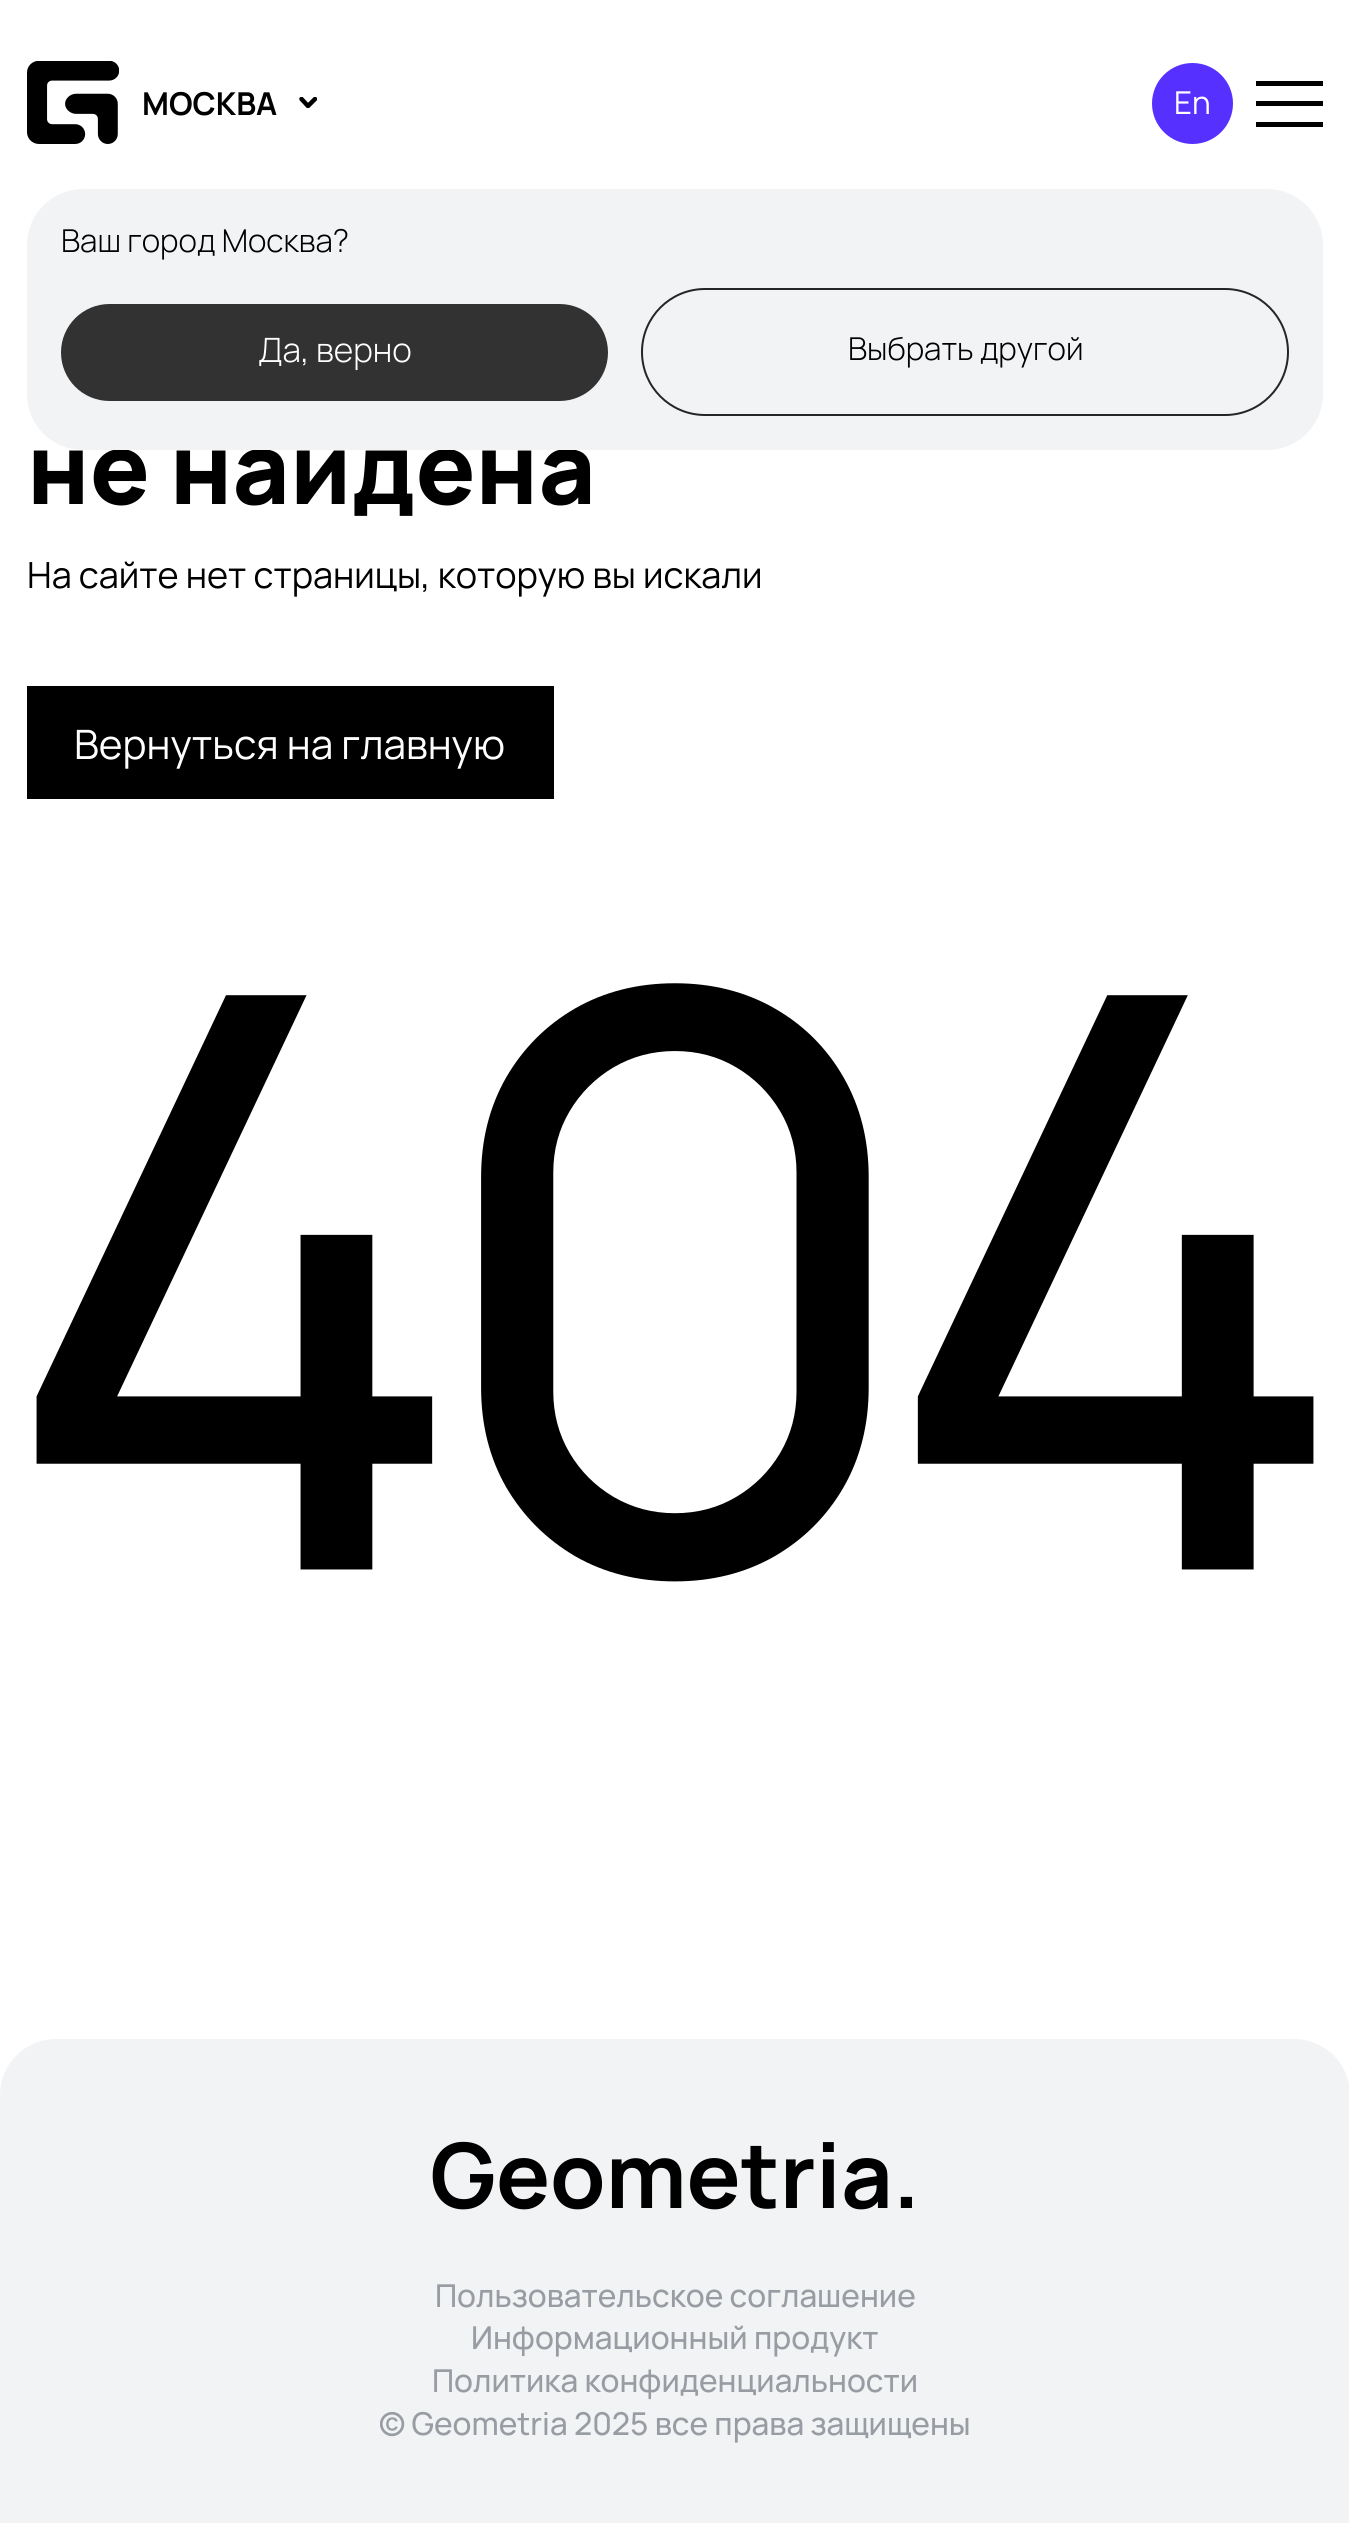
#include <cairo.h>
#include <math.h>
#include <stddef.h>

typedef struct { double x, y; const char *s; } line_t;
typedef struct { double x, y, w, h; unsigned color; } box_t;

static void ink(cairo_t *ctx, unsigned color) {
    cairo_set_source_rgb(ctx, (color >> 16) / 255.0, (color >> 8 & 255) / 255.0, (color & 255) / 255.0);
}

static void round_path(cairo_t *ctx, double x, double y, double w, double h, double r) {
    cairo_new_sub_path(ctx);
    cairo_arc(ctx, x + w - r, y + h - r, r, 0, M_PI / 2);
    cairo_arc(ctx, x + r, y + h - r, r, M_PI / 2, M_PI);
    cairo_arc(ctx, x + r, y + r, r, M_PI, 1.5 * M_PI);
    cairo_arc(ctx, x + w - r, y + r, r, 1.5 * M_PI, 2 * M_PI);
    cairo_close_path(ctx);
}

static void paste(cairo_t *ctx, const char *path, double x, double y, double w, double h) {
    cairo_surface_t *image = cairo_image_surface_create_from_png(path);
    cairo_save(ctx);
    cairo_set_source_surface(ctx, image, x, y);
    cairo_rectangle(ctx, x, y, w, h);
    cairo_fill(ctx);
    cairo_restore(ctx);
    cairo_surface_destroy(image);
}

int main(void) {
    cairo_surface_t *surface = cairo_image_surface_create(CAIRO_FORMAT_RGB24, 1349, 2523);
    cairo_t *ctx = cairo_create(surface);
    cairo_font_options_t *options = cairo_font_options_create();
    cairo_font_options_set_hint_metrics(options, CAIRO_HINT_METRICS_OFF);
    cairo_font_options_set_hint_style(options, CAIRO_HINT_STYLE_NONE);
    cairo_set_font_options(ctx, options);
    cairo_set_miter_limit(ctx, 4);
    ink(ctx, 0xFFFFFF);
    cairo_paint(ctx);
    paste(ctx, "media/1.png", 27, 61, 92, 83);
    cairo_select_font_face(ctx, "Manrope", CAIRO_FONT_SLANT_NORMAL, CAIRO_FONT_WEIGHT_BOLD);
    cairo_set_font_size(ctx, 31.5);
    ink(ctx, 0x000000);
    cairo_move_to(ctx, 142, 115);
    cairo_show_text(ctx, "МОСКВА");
    cairo_save(ctx);
    cairo_rectangle(ctx, 299, 97, 18, 11);
    cairo_clip(ctx);
    cairo_new_path(ctx);
    cairo_move_to(ctx, 301.5, 99);
    cairo_line_to(ctx, 308, 106);
    cairo_line_to(ctx, 315, 99);
    cairo_set_line_width(ctx, 4.5);
    cairo_set_line_cap(ctx, CAIRO_LINE_CAP_ROUND);
    cairo_set_line_join(ctx, CAIRO_LINE_JOIN_ROUND);
    cairo_stroke(ctx);
    cairo_restore(ctx);
    cairo_select_font_face(ctx, "Manrope ExtraBold", CAIRO_FONT_SLANT_NORMAL, CAIRO_FONT_WEIGHT_NORMAL);
    cairo_set_font_size(ctx, 99);
    cairo_move_to(ctx, 27, 504);
    cairo_show_text(ctx, "не найдена");
    ink(ctx, 0xF2F3F5);
    round_path(ctx, 27, 189, 1296, 261, 56);
    cairo_fill(ctx);
    cairo_select_font_face(ctx, "Manrope Light", CAIRO_FONT_SLANT_NORMAL, CAIRO_FONT_WEIGHT_NORMAL);
    cairo_set_font_size(ctx, 31.5);
    ink(ctx, 0x000000);
    cairo_move_to(ctx, 61, 252);
    cairo_show_text(ctx, "Ваш город Москва?");
    ink(ctx, 0x323232);
    round_path(ctx, 61, 304, 547, 97, 48.5);
    cairo_fill(ctx);
    cairo_set_font_size(ctx, 33.5);
    ink(ctx, 0xFFFFFF);
    cairo_move_to(ctx, 258, 362);
    cairo_show_text(ctx, "Да, верно");
    round_path(ctx, 642, 289, 646, 126, 63);
    ink(ctx, 0x252525);
    cairo_stroke(ctx);
    cairo_set_font_size(ctx, 31.5);
    ink(ctx, 0x000000);
    cairo_move_to(ctx, 848, 360);
    cairo_show_text(ctx, "Выбрать другой");
    ink(ctx, 0x5630FF);
    cairo_new_path(ctx);
    cairo_arc(ctx, 1192.5, 103.5, 40.5, 0, 2 * M_PI);
    cairo_fill(ctx);
    cairo_select_font_face(ctx, "Manrope", CAIRO_FONT_SLANT_NORMAL, CAIRO_FONT_WEIGHT_NORMAL);
    ink(ctx, 0xFFFFFF);
    cairo_move_to(ctx, 1174, 114);
    cairo_show_text(ctx, "En");
    {
        static const box_t items[] = {
            {1256, 81, 67, 5, 0x000000},
            {1256, 101, 67, 5, 0x000000},
            {1256, 122, 67, 5, 0x000000},
        };
        for (size_t i = 0; i < sizeof items / sizeof *items; i++) {
            ink(ctx, items[i].color);
            cairo_rectangle(ctx, items[i].x, items[i].y, items[i].w, items[i].h);
            cairo_fill(ctx);
        }
    }
    cairo_set_font_size(ctx, 36);
    cairo_move_to(ctx, 27, 588);
    cairo_show_text(ctx, "На сайте нет страницы, которую вы искали");
    cairo_rectangle(ctx, 27, 686, 527, 113);
    cairo_fill(ctx);
    cairo_set_font_size(ctx, 40.5);
    ink(ctx, 0xFFFFFF);
    cairo_move_to(ctx, 74, 759);
    cairo_show_text(ctx, "Вернуться на главную");
    paste(ctx, "media/2.png", 36, 983, 1278, 599);
    ink(ctx, 0xF2F3F5);
    cairo_new_path(ctx);
    cairo_move_to(ctx, 56, 2039);
    cairo_line_to(ctx, 1294, 2039);
    cairo_curve_to(ctx, 1325, 2039, 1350, 2064, 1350, 2095);
    cairo_line_to(ctx, 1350, 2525);
    cairo_line_to(ctx, 0, 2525);
    cairo_line_to(ctx, 0, 2095);
    cairo_curve_to(ctx, 0, 2064, 25, 2039, 56, 2039);
    cairo_close_path(ctx);
    cairo_fill(ctx);
    cairo_select_font_face(ctx, "Manrope", CAIRO_FONT_SLANT_NORMAL, CAIRO_FONT_WEIGHT_BOLD);
    cairo_set_font_size(ctx, 90);
    ink(ctx, 0x000000);
    cairo_move_to(ctx, 430, 2208);
    cairo_show_text(ctx, "Geometria.");
    cairo_select_font_face(ctx, "Manrope Medium", CAIRO_FONT_SLANT_NORMAL, CAIRO_FONT_WEIGHT_NORMAL);
    cairo_set_font_size(ctx, 31.5);
    ink(ctx, 0x989CA3);
    {
        static const line_t items[] = {
            {435, 2307, "Пользовательское соглашение"},
            {471, 2349, "Информационный продукт"},
            {432, 2392, "Политика конфиденциальности"},
            {379, 2435, "© Geometria 2025 все права защищены"},
        };
        for (size_t i = 0; i < sizeof items / sizeof *items; i++) {
            cairo_move_to(ctx, items[i].x, items[i].y);
            cairo_show_text(ctx, items[i].s);
        }
    }
    cairo_surface_write_to_png(surface, "image.png");
    cairo_font_options_destroy(options);
    cairo_destroy(ctx);
    cairo_surface_destroy(surface);
    return 0;
}
